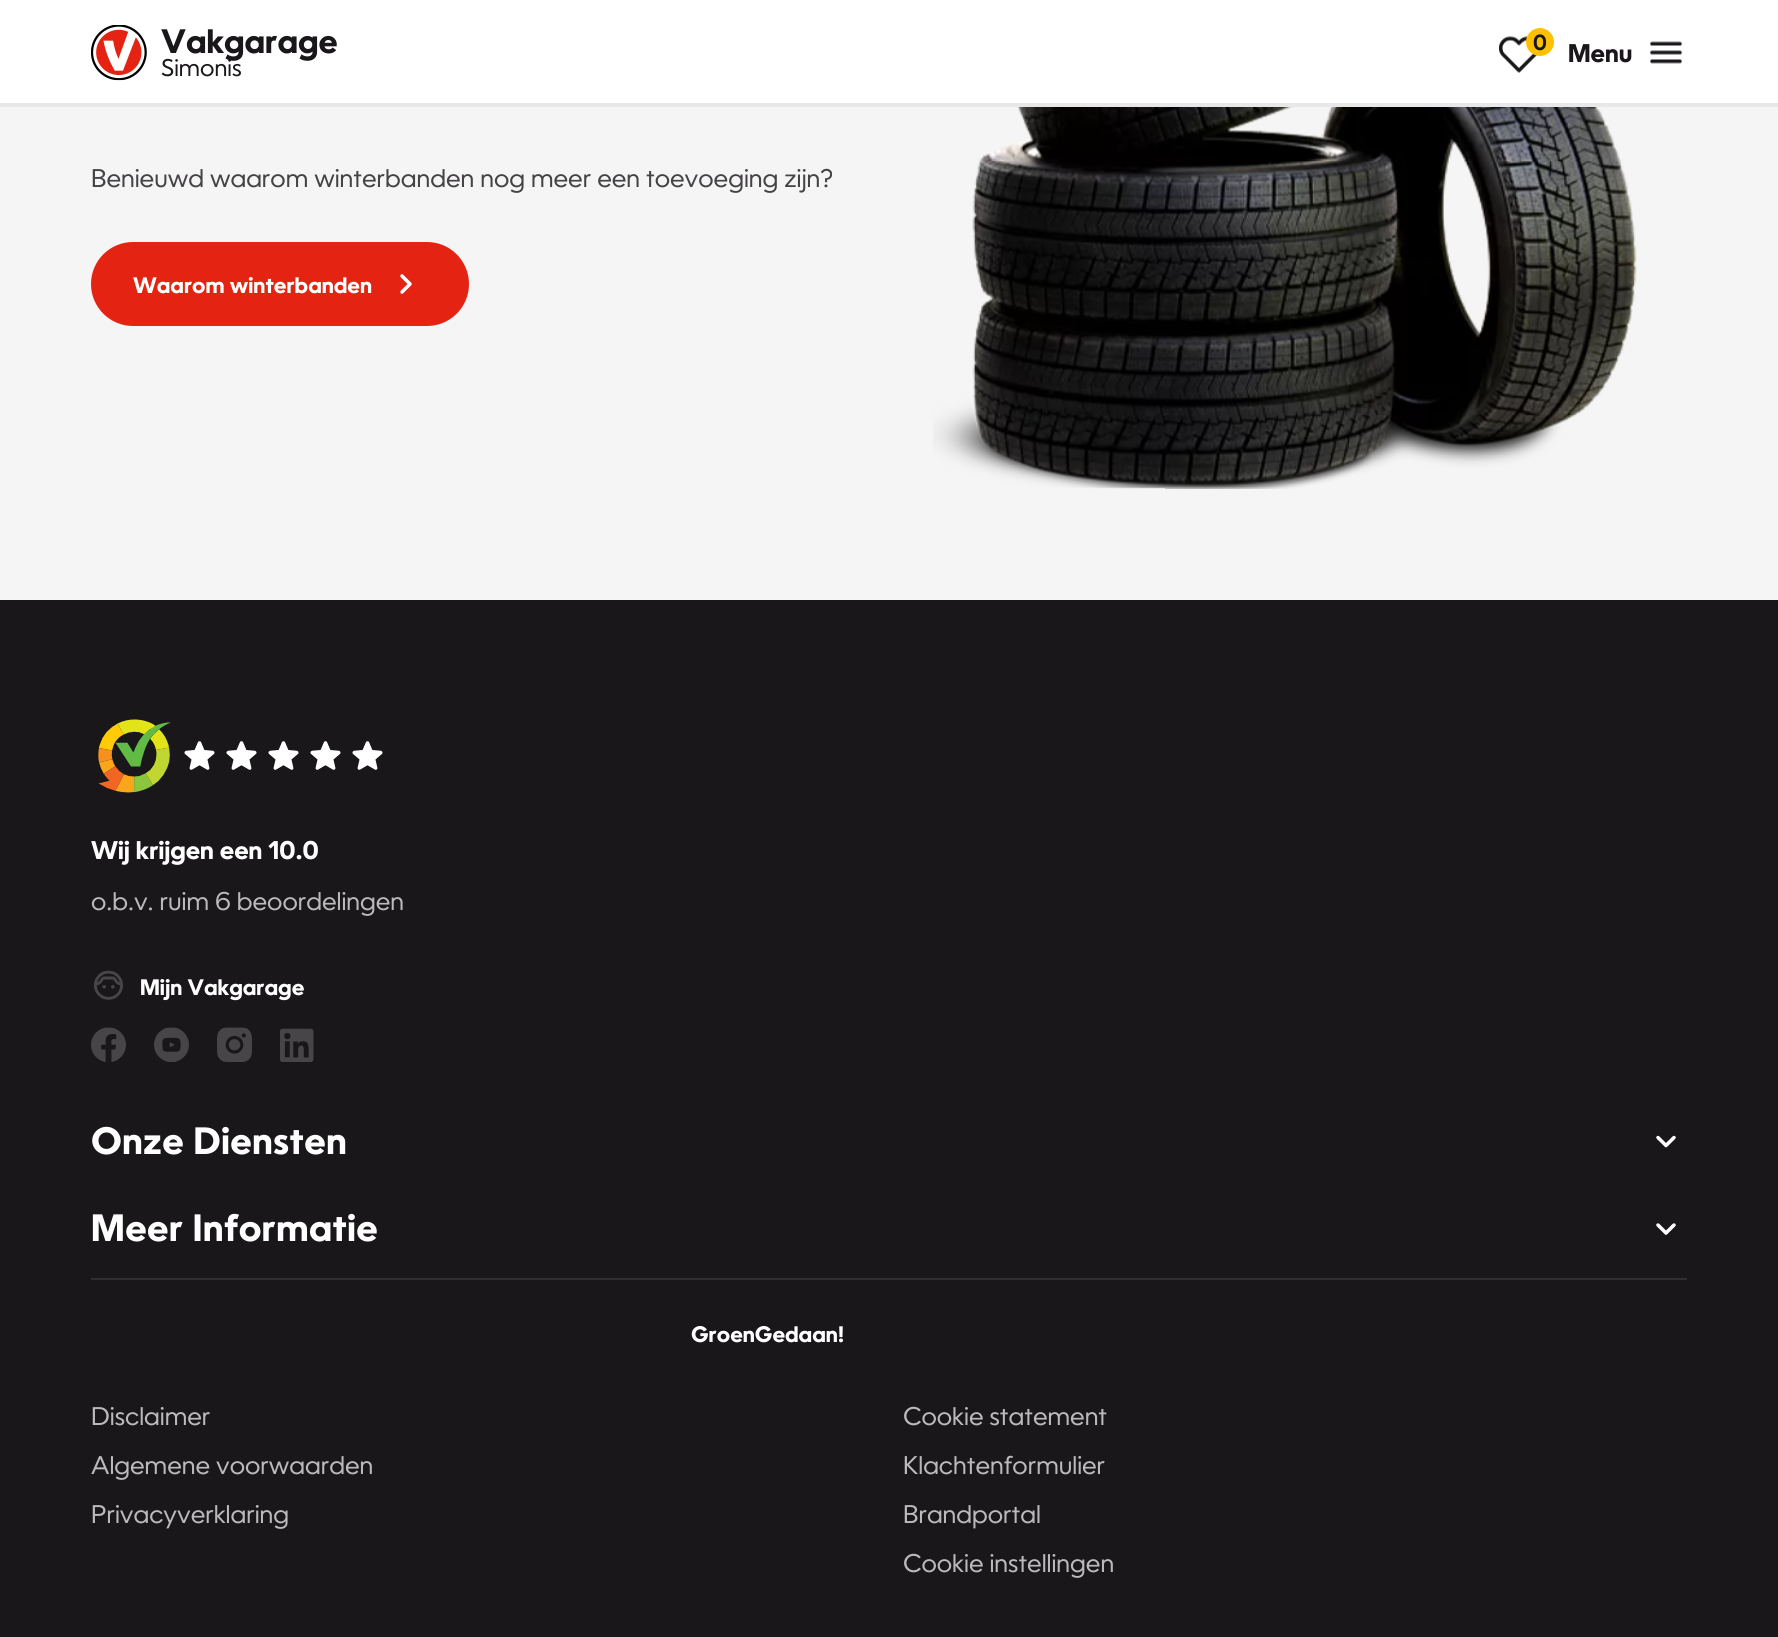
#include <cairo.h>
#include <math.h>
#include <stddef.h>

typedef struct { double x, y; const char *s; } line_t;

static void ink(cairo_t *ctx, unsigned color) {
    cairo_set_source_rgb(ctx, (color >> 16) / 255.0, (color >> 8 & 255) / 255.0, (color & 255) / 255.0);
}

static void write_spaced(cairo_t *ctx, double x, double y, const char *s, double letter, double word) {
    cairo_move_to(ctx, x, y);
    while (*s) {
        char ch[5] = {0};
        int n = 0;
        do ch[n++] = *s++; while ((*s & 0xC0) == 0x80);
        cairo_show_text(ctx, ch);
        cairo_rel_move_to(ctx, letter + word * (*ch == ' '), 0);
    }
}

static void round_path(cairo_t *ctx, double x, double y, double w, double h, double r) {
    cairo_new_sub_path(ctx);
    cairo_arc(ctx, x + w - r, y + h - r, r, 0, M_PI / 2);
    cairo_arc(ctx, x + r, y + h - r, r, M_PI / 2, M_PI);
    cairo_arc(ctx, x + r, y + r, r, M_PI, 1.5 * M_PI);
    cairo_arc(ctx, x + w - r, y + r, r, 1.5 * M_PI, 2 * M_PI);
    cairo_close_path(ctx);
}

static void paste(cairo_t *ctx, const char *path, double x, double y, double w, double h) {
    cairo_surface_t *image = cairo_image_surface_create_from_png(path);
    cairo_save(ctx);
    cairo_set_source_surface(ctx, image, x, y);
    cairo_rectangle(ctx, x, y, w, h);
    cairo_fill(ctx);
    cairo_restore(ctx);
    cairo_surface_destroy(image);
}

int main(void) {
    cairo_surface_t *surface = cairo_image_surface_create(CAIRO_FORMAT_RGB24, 1778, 1637);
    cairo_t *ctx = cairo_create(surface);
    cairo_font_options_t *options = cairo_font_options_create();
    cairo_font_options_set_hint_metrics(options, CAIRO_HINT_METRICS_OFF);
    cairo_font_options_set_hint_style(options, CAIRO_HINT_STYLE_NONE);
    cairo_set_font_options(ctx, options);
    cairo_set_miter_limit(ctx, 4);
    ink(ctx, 0xF5F5F5);
    cairo_paint(ctx);
    ink(ctx, 0xFFFFFF);
    cairo_rectangle(ctx, 0, 0, 1778, 103);
    cairo_fill(ctx);
    ink(ctx, 0xE8E8E8);
    cairo_rectangle(ctx, 0, 103, 1778, 4);
    cairo_fill(ctx);
    paste(ctx, "media/1.png", 91, 25, 56, 56);
    cairo_select_font_face(ctx, "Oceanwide", CAIRO_FONT_SLANT_NORMAL, CAIRO_FONT_WEIGHT_BOLD);
    cairo_set_font_size(ctx, 32.5);
    ink(ctx, 0x1A171B);
    cairo_move_to(ctx, 161, 53);
    cairo_show_text(ctx, "Vakgarage");
    cairo_select_font_face(ctx, "Oceanwide", CAIRO_FONT_SLANT_NORMAL, CAIRO_FONT_WEIGHT_NORMAL);
    cairo_set_font_size(ctx, 23);
    cairo_move_to(ctx, 161, 76);
    cairo_show_text(ctx, "Simonis");
    paste(ctx, "media/2.png", 1499, 36, 38, 37);
    ink(ctx, 0xFFC000);
    cairo_arc(ctx, 1540, 42, 14, 0, 2 * M_PI);
    cairo_fill(ctx);
    cairo_select_font_face(ctx, "Oceanwide SemiBold", CAIRO_FONT_SLANT_NORMAL, CAIRO_FONT_WEIGHT_NORMAL);
    cairo_set_font_size(ctx, 21);
    ink(ctx, 0x1A171B);
    cairo_move_to(ctx, 1533, 50);
    cairo_show_text(ctx, "0");
    cairo_select_font_face(ctx, "Oceanwide", CAIRO_FONT_SLANT_NORMAL, CAIRO_FONT_WEIGHT_BOLD);
    cairo_set_font_size(ctx, 24.5);
    cairo_move_to(ctx, 1568, 62);
    cairo_show_text(ctx, "Menu");
    paste(ctx, "media/3.png", 1650, 41, 32, 23);
    cairo_select_font_face(ctx, "Oceanwide", CAIRO_FONT_SLANT_NORMAL, CAIRO_FONT_WEIGHT_NORMAL);
    ink(ctx, 0x464347);
    cairo_move_to(ctx, 91, 187);
    cairo_show_text(ctx, "Benieuwd waarom winterbanden nog meer een toevoeging zijn?");
    ink(ctx, 0xE42313);
    round_path(ctx, 91, 242, 378, 84, 42);
    cairo_fill(ctx);
    cairo_select_font_face(ctx, "Oceanwide", CAIRO_FONT_SLANT_NORMAL, CAIRO_FONT_WEIGHT_BOLD);
    cairo_set_font_size(ctx, 21.5);
    ink(ctx, 0xFFFFFF);
    cairo_move_to(ctx, 133, 293);
    cairo_show_text(ctx, "Waarom winterbanden");
    paste(ctx, "media/4.png", 400, 274, 12, 20);
    paste(ctx, "media/5.png", 933, 107, 704, 382);
    ink(ctx, 0x1A171B);
    cairo_rectangle(ctx, 0, 600, 1778, 1037);
    cairo_fill(ctx);
    paste(ctx, "media/6.png", 98, 719, 73, 74);
    paste(ctx, "media/7.png", 184, 741, 31, 29);
    paste(ctx, "media/8.png", 226, 741, 31, 29);
    paste(ctx, "media/7.png", 268, 741, 31, 29);
    paste(ctx, "media/7.png", 310, 741, 31, 29);
    paste(ctx, "media/7.png", 352, 741, 31, 29);
    cairo_set_font_size(ctx, 24.5);
    ink(ctx, 0xFFFFFF);
    cairo_move_to(ctx, 91, 859);
    cairo_show_text(ctx, "Wij krijgen een 10.0");
    cairo_select_font_face(ctx, "Oceanwide", CAIRO_FONT_SLANT_NORMAL, CAIRO_FONT_WEIGHT_NORMAL);
    ink(ctx, 0xBAB9BB);
    cairo_move_to(ctx, 91, 910);
    cairo_show_text(ctx, "o.b.v. ruim 6 beoordelingen");
    paste(ctx, "media/9.png", 94, 970, 29, 30);
    cairo_select_font_face(ctx, "Oceanwide", CAIRO_FONT_SLANT_NORMAL, CAIRO_FONT_WEIGHT_BOLD);
    cairo_set_font_size(ctx, 21.5);
    ink(ctx, 0xFFFFFF);
    cairo_move_to(ctx, 140, 995);
    cairo_show_text(ctx, "Mijn Vakgarage");
    paste(ctx, "media/10.png", 91, 1027, 35, 35);
    paste(ctx, "media/11.png", 154, 1027, 35, 35);
    paste(ctx, "media/12.png", 217, 1027, 35, 35);
    paste(ctx, "media/13.png", 280, 1028, 34, 34);
    cairo_set_font_size(ctx, 36.5);
    write_spaced(ctx, 91, 1154, "Onze Diensten", 0.5, 0);
    paste(ctx, "media/14.png", 1656, 1135, 20, 13);
    write_spaced(ctx, 91, 1241, "Meer Informatie", 0.5, 0);
    paste(ctx, "media/15.png", 1656, 1223, 20, 12);
    ink(ctx, 0x312E31);
    cairo_rectangle(ctx, 91, 1278, 1596, 2);
    cairo_fill(ctx);
    cairo_set_font_size(ctx, 21.5);
    ink(ctx, 0xFFFFFF);
    cairo_move_to(ctx, 691, 1342);
    cairo_show_text(ctx, "GroenGedaan!");
    cairo_select_font_face(ctx, "Oceanwide", CAIRO_FONT_SLANT_NORMAL, CAIRO_FONT_WEIGHT_NORMAL);
    cairo_set_font_size(ctx, 24.5);
    ink(ctx, 0xBAB9BB);
    {
        static const line_t items[] = {
            {91, 1425, "Disclaimer"},
            {91, 1474, "Algemene voorwaarden"},
            {91, 1523, "Privacyverklaring"},
            {903, 1425, "Cookie statement"},
            {903, 1474, "Klachtenformulier"},
            {903, 1523, "Brandportal"},
            {903, 1572, "Cookie instellingen"},
        };
        for (size_t i = 0; i < sizeof items / sizeof *items; i++) {
            cairo_move_to(ctx, items[i].x, items[i].y);
            cairo_show_text(ctx, items[i].s);
        }
    }
    cairo_surface_write_to_png(surface, "image.png");
    cairo_font_options_destroy(options);
    cairo_destroy(ctx);
    cairo_surface_destroy(surface);
    return 0;
}
